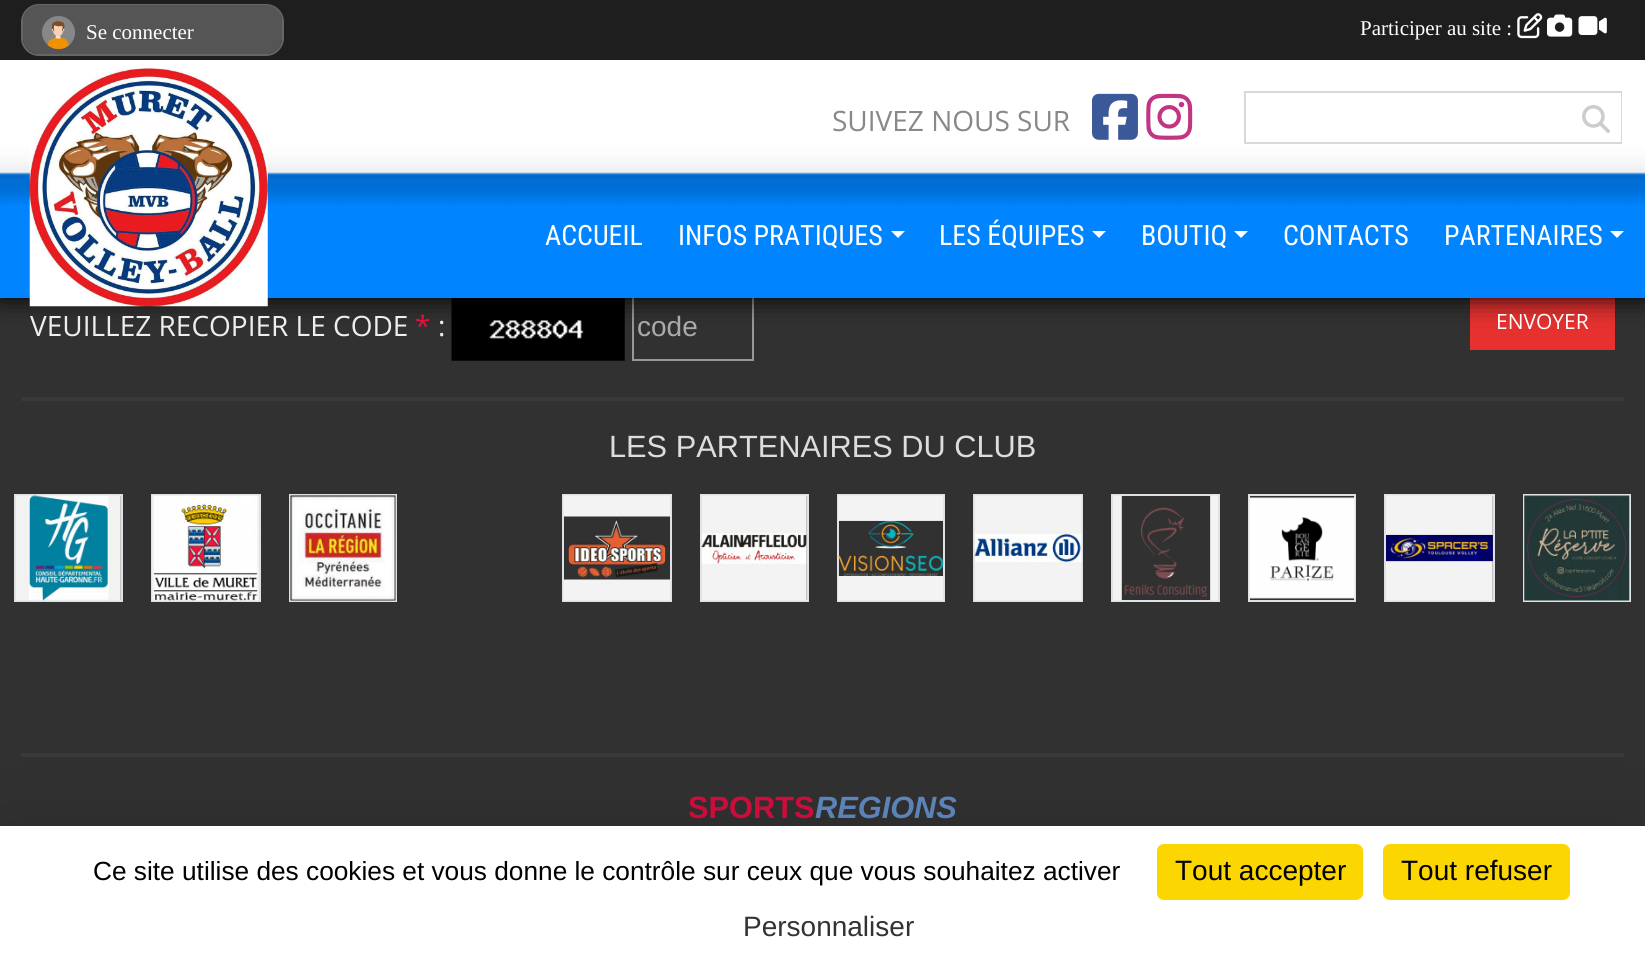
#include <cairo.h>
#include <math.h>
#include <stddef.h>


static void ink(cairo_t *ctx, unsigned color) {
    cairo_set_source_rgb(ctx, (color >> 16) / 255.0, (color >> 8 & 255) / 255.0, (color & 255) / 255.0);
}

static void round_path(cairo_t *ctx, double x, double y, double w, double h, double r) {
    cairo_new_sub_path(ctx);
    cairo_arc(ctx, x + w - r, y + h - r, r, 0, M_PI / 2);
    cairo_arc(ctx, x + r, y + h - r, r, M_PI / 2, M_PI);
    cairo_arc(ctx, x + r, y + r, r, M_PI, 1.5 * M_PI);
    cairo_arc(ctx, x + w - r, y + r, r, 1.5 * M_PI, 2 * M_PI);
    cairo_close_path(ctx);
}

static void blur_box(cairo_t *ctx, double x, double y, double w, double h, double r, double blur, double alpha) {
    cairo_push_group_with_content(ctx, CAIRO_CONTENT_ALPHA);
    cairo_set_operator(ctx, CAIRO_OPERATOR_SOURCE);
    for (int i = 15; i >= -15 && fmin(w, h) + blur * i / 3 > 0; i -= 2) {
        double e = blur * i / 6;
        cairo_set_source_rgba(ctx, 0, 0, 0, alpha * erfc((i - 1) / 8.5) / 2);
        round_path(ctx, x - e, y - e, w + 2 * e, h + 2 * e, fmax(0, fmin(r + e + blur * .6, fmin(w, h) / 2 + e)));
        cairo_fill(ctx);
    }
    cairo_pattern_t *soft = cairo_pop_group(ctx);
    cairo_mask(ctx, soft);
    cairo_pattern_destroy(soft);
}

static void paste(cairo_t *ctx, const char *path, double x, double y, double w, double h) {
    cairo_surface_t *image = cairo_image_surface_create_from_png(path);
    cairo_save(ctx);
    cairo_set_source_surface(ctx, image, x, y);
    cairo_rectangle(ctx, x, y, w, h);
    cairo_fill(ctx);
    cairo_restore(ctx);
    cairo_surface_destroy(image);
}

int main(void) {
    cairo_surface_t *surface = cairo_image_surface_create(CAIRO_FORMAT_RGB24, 1645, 972);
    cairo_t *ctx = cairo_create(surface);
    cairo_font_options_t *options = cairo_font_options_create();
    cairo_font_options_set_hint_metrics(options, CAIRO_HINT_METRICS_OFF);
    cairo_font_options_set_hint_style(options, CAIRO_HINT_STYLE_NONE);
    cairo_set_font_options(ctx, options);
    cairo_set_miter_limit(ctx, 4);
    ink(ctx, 0x313131);
    cairo_paint(ctx);
    paste(ctx, "media/10.png", 451, 298, 174, 63);
    cairo_rectangle(ctx, 633, 295, 120, 65);
    ink(ctx, 0x989898);
    cairo_stroke(ctx);
    ink(ctx, 0xE6312E);
    cairo_rectangle(ctx, 1470, 298, 145, 52);
    cairo_fill(ctx);
    ink(ctx, 0x000000);
    blur_box(ctx, 0, 60, 1645, 238, 0, 13, 1);
    ink(ctx, 0x1E1E1E);
    cairo_rectangle(ctx, 0, 0, 1645, 60);
    cairo_fill(ctx);
    round_path(ctx, 22, 5, 261, 50, 17);
    ink(ctx, 0x666666);
    cairo_stroke(ctx);
    ink(ctx, 0x555555);
    round_path(ctx, 23, 5, 259, 49, 16);
    cairo_fill(ctx);
    paste(ctx, "media/1.png", 42, 16, 33, 33);
    cairo_select_font_face(ctx, "Liberation Serif", CAIRO_FONT_SLANT_NORMAL, CAIRO_FONT_WEIGHT_NORMAL);
    cairo_set_font_size(ctx, 21);
    ink(ctx, 0xFFFFFF);
    cairo_move_to(ctx, 86, 39);
    cairo_show_text(ctx, "Se connecter");
    cairo_move_to(ctx, 1360, 35);
    cairo_show_text(ctx, "Participer au site :");
    paste(ctx, "media/2.png", 1517, 13, 26, 26);
    paste(ctx, "media/3.png", 1547, 14, 26, 23);
    paste(ctx, "media/4.png", 1578, 16, 29, 19);
    ink(ctx, 0x0084FF);
    cairo_rectangle(ctx, 0, 172, 1645, 126);
    cairo_fill(ctx);
    paste(ctx, "media/5.png", 0, 60, 1645, 145);
    paste(ctx, "media/6.png", 29, 68, 239, 239);
    cairo_select_font_face(ctx, "Open Sans", CAIRO_FONT_SLANT_NORMAL, CAIRO_FONT_WEIGHT_NORMAL);
    cairo_set_font_size(ctx, 28);
    ink(ctx, 0x888888);
    cairo_move_to(ctx, 832, 131);
    cairo_show_text(ctx, "SUIVEZ NOUS SUR");
    paste(ctx, "media/7.png", 1092, 93, 46, 47);
    paste(ctx, "media/8.png", 1146, 93, 47, 47);
    cairo_rectangle(ctx, 1245, 92, 376, 51);
    ink(ctx, 0xD8D8D8);
    cairo_stroke(ctx);
    ink(ctx, 0xFFFFFF);
    cairo_rectangle(ctx, 1620, 93, 1, 49);
    cairo_fill(ctx);
    paste(ctx, "media/9.png", 1582, 105, 28, 28);
    cairo_select_font_face(ctx, "Roboto Condensed", CAIRO_FONT_SLANT_NORMAL, CAIRO_FONT_WEIGHT_NORMAL);
    cairo_move_to(ctx, 545, 245);
    cairo_show_text(ctx, "ACCUEIL");
    cairo_move_to(ctx, 678, 245);
    cairo_show_text(ctx, "INFOS PRATIQUES");
    cairo_new_path(ctx);
    cairo_move_to(ctx, 891, 231);
    cairo_line_to(ctx, 905, 231);
    cairo_line_to(ctx, 898, 238);
    cairo_close_path(ctx);
    cairo_fill(ctx);
    cairo_move_to(ctx, 939, 245);
    cairo_show_text(ctx, "LES ÉQUIPES");
    cairo_new_path(ctx);
    cairo_move_to(ctx, 1092, 231);
    cairo_line_to(ctx, 1106, 231);
    cairo_line_to(ctx, 1099, 238);
    cairo_close_path(ctx);
    cairo_fill(ctx);
    cairo_move_to(ctx, 1141, 245);
    cairo_show_text(ctx, "BOUTIQ");
    cairo_new_path(ctx);
    cairo_move_to(ctx, 1234, 231);
    cairo_line_to(ctx, 1248, 231);
    cairo_line_to(ctx, 1241, 238);
    cairo_close_path(ctx);
    cairo_fill(ctx);
    cairo_move_to(ctx, 1283, 245);
    cairo_show_text(ctx, "CONTACTS");
    cairo_move_to(ctx, 1444, 245);
    cairo_show_text(ctx, "PARTENAIRES");
    cairo_new_path(ctx);
    cairo_move_to(ctx, 1610, 231);
    cairo_line_to(ctx, 1624, 231);
    cairo_line_to(ctx, 1617, 238);
    cairo_close_path(ctx);
    cairo_fill(ctx);
    cairo_select_font_face(ctx, "Open Sans", CAIRO_FONT_SLANT_NORMAL, CAIRO_FONT_WEIGHT_NORMAL);
    ink(ctx, 0xEEEEEE);
    cairo_move_to(ctx, 30, 336);
    cairo_show_text(ctx, "VEUILLEZ RECOPIER LE CODE");
    ink(ctx, 0xE4133A);
    cairo_move_to(ctx, 415, 336);
    cairo_show_text(ctx, "*");
    ink(ctx, 0xEEEEEE);
    cairo_move_to(ctx, 438, 336);
    cairo_show_text(ctx, ":");
    cairo_select_font_face(ctx, "Liberation Sans", CAIRO_FONT_SLANT_NORMAL, CAIRO_FONT_WEIGHT_NORMAL);
    ink(ctx, 0xAAAAAA);
    cairo_move_to(ctx, 637, 336);
    cairo_show_text(ctx, "code");
    cairo_select_font_face(ctx, "Open Sans", CAIRO_FONT_SLANT_NORMAL, CAIRO_FONT_WEIGHT_NORMAL);
    cairo_set_font_size(ctx, 21);
    ink(ctx, 0xFFFFFF);
    cairo_move_to(ctx, 1496, 329);
    cairo_show_text(ctx, "ENVOYER");
    ink(ctx, 0x393939);
    cairo_rectangle(ctx, 21, 397, 1603, 4);
    cairo_fill(ctx);
    cairo_select_font_face(ctx, "Liberation Sans", CAIRO_FONT_SLANT_NORMAL, CAIRO_FONT_WEIGHT_NORMAL);
    cairo_set_font_size(ctx, 30.75);
    ink(ctx, 0xDDDDDD);
    cairo_move_to(ctx, 609, 457);
    cairo_show_text(ctx, "LES PARTENAIRES DU CLUB");
    cairo_rectangle(ctx, 15, 495, 107, 106);
    ink(ctx, 0xDEE2E6);
    cairo_stroke(ctx);
    paste(ctx, "media/11.png", 15, 495, 106, 106);
    cairo_rectangle(ctx, 152, 495, 108, 106);
    cairo_stroke(ctx);
    paste(ctx, "media/12.png", 152, 495, 107, 106);
    cairo_rectangle(ctx, 290, 495, 106, 106);
    cairo_stroke(ctx);
    paste(ctx, "media/13.png", 290, 495, 106, 106);
    cairo_rectangle(ctx, 563, 495, 108, 106);
    cairo_stroke(ctx);
    paste(ctx, "media/14.png", 563, 495, 108, 106);
    cairo_rectangle(ctx, 701, 495, 107, 106);
    cairo_stroke(ctx);
    paste(ctx, "media/15.png", 701, 495, 106, 106);
    cairo_rectangle(ctx, 838, 495, 106, 106);
    cairo_stroke(ctx);
    paste(ctx, "media/16.png", 838, 495, 106, 106);
    cairo_rectangle(ctx, 974, 495, 108, 106);
    cairo_stroke(ctx);
    paste(ctx, "media/17.png", 974, 495, 108, 106);
    cairo_rectangle(ctx, 1112, 495, 107, 106);
    cairo_stroke(ctx);
    paste(ctx, "media/18.png", 1113, 495, 105, 106);
    cairo_rectangle(ctx, 1249, 495, 106, 106);
    cairo_stroke(ctx);
    paste(ctx, "media/19.png", 1249, 497, 106, 102);
    cairo_rectangle(ctx, 1385, 495, 109, 106);
    cairo_stroke(ctx);
    paste(ctx, "media/20.png", 1386, 495, 107, 106);
    cairo_rectangle(ctx, 1524, 495, 106, 106);
    cairo_stroke(ctx);
    paste(ctx, "media/21.png", 1524, 495, 106, 106);
    ink(ctx, 0x393939);
    cairo_rectangle(ctx, 21, 753, 1603, 4);
    cairo_fill(ctx);
    cairo_select_font_face(ctx, "Liberation Sans", CAIRO_FONT_SLANT_NORMAL, CAIRO_FONT_WEIGHT_BOLD);
    ink(ctx, 0xD60C3E);
    cairo_move_to(ctx, 688, 818);
    cairo_show_text(ctx, "SPORTS");
    cairo_select_font_face(ctx, "Liberation Sans", CAIRO_FONT_SLANT_ITALIC, CAIRO_FONT_WEIGHT_BOLD);
    ink(ctx, 0x5F88C0);
    cairo_move_to(ctx, 815, 818);
    cairo_show_text(ctx, "REGIONS");
    ink(ctx, 0x000000);
    blur_box(ctx, 0, 861, 1645, 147, 0, 52.5, 0.25);
    ink(ctx, 0xFFFFFF);
    cairo_rectangle(ctx, 0, 826, 1645, 146);
    cairo_fill(ctx);
    cairo_select_font_face(ctx, "Liberation Sans", CAIRO_FONT_SLANT_NORMAL, CAIRO_FONT_WEIGHT_NORMAL);
    cairo_set_font_size(ctx, 26.25);
    ink(ctx, 0x000000);
    cairo_move_to(ctx, 93, 880);
    cairo_show_text(ctx, "Ce site utilise des cookies et vous donne le contrôle sur ceux que vous souhaitez activer");
    ink(ctx, 0xFBD600);
    round_path(ctx, 1157, 844, 206, 56, 7);
    cairo_fill(ctx);
    cairo_set_font_size(ctx, 28);
    ink(ctx, 0x000000);
    cairo_move_to(ctx, 1175, 880);
    cairo_show_text(ctx, "Tout accepter");
    ink(ctx, 0xFBD600);
    round_path(ctx, 1383, 844, 187, 56, 7);
    cairo_fill(ctx);
    ink(ctx, 0x000000);
    cairo_move_to(ctx, 1401, 880);
    cairo_show_text(ctx, "Tout refuser");
    ink(ctx, 0x333333);
    cairo_move_to(ctx, 743, 936);
    cairo_show_text(ctx, "Personnaliser");
    cairo_surface_write_to_png(surface, "image.png");
    cairo_font_options_destroy(options);
    cairo_destroy(ctx);
    cairo_surface_destroy(surface);
    return 0;
}
